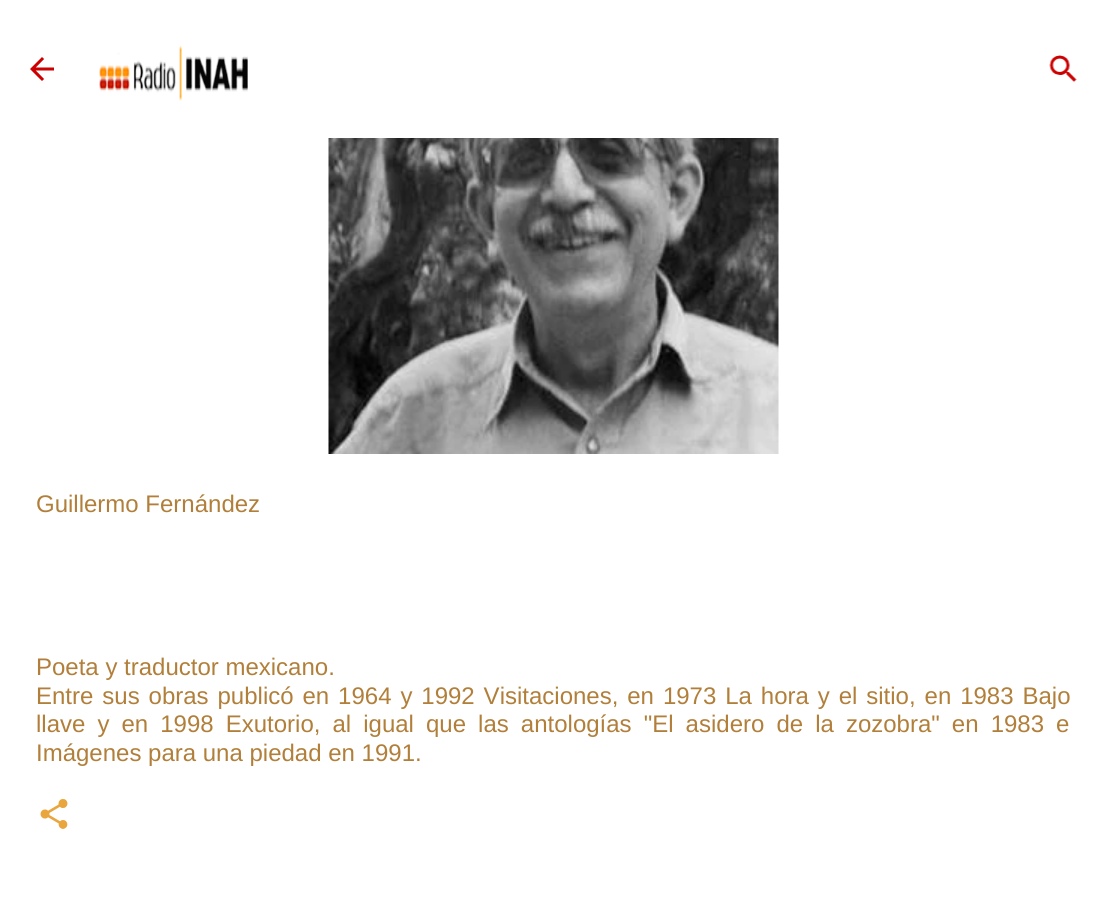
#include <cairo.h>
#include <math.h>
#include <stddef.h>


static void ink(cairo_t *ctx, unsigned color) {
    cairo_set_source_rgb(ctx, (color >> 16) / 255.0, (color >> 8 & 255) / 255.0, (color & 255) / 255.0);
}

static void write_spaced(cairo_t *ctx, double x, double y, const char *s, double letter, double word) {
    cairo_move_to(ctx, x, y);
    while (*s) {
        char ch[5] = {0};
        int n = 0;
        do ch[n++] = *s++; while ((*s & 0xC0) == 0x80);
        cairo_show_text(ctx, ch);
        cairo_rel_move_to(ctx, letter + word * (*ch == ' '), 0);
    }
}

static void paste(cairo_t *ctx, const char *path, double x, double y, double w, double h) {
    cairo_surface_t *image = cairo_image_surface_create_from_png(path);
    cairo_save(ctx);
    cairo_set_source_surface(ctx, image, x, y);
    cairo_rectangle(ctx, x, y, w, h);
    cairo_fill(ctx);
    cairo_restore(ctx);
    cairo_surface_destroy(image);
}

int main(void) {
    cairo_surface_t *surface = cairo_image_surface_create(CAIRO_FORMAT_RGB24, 1105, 904);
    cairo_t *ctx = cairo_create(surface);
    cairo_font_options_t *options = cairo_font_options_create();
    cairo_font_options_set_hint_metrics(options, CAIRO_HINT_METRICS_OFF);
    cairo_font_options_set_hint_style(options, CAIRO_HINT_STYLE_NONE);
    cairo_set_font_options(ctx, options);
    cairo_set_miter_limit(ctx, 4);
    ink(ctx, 0xFFFFFF);
    cairo_paint(ctx);
    paste(ctx, "media/1.png", 30, 57, 24, 24);
    paste(ctx, "media/2.png", 99, 45, 149, 56);
    paste(ctx, "media/3.png", 1049, 55, 28, 27);
    paste(ctx, "media/4.png", 328, 138, 451, 316);
    cairo_select_font_face(ctx, "Liberation Sans", CAIRO_FONT_SLANT_NORMAL, CAIRO_FONT_WEIGHT_NORMAL);
    cairo_set_font_size(ctx, 24);
    ink(ctx, 0xB17F3A);
    cairo_move_to(ctx, 36, 512);
    cairo_show_text(ctx, "Guillermo Fernández");
    cairo_move_to(ctx, 36, 675);
    cairo_show_text(ctx, "Poeta y traductor mexicano.");
    write_spaced(ctx, 36, 704, "Entre sus obras publicó en 1964 y 1992 Visitaciones, en 1973 La hora y el sitio, en 1983 Bajo", 0, 2.25);
    write_spaced(ctx, 36, 732, "llave y en 1998 Exutorio, al igual que las antologías \"El asidero de la zozobra\" en 1983 e", 0, 5.4);
    cairo_move_to(ctx, 36, 761);
    cairo_show_text(ctx, "Imágenes para una piedad en 1991.");
    paste(ctx, "media/5.png", 40, 799, 28, 30);
    cairo_surface_write_to_png(surface, "image.png");
    cairo_font_options_destroy(options);
    cairo_destroy(ctx);
    cairo_surface_destroy(surface);
    return 0;
}
